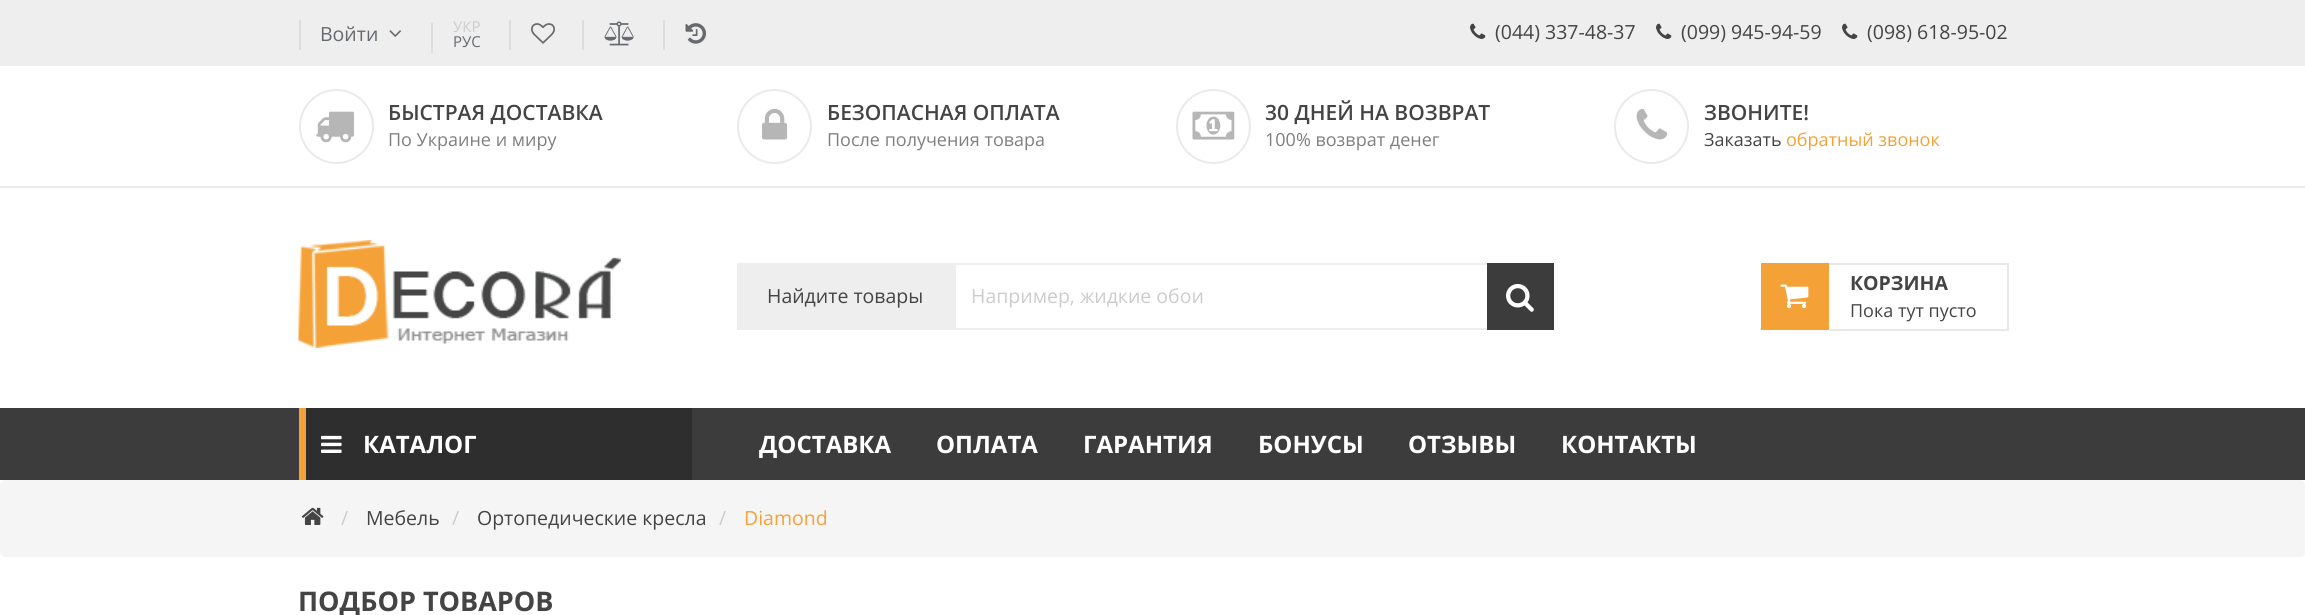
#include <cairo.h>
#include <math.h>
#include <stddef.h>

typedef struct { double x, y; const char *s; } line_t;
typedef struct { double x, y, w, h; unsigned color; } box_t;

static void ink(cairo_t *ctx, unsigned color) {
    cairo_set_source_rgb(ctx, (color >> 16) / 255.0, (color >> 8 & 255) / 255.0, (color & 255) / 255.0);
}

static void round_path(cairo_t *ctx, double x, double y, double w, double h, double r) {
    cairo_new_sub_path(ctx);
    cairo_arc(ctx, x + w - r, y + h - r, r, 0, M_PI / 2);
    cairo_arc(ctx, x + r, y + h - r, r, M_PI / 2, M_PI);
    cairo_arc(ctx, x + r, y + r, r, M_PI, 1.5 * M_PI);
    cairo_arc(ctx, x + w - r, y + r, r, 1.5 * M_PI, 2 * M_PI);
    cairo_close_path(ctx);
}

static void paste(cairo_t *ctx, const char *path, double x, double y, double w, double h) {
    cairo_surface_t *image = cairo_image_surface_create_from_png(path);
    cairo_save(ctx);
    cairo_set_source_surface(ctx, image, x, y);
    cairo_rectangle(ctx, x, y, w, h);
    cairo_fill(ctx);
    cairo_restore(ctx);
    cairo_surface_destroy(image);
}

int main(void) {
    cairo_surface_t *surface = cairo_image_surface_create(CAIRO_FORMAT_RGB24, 2305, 615);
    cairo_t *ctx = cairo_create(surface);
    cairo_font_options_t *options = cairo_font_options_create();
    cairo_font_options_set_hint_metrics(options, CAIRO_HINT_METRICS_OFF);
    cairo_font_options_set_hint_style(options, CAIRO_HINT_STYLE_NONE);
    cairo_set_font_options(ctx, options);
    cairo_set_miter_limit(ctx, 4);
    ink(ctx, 0xFFFFFF);
    cairo_paint(ctx);
    ink(ctx, 0xEEEEEE);
    cairo_rectangle(ctx, 0, 0, 2305, 66);
    cairo_fill(ctx);
    ink(ctx, 0xDDDDDD);
    cairo_rectangle(ctx, 299, 20, 2, 30);
    cairo_fill(ctx);
    cairo_select_font_face(ctx, "Open Sans", CAIRO_FONT_SLANT_NORMAL, CAIRO_FONT_WEIGHT_NORMAL);
    cairo_set_font_size(ctx, 19.5);
    ink(ctx, 0x666A6E);
    cairo_move_to(ctx, 320, 41);
    cairo_show_text(ctx, "Войти");
    paste(ctx, "media/1.png", 389, 30, 12, 7);
    ink(ctx, 0xDDDDDD);
    cairo_rectangle(ctx, 431, 23, 2, 30);
    cairo_fill(ctx);
    cairo_set_font_size(ctx, 15);
    ink(ctx, 0xCCCCCC);
    cairo_move_to(ctx, 453, 32);
    cairo_show_text(ctx, "УКР");
    ink(ctx, 0x666A6E);
    cairo_move_to(ctx, 453, 47);
    cairo_show_text(ctx, "РУС");
    ink(ctx, 0xDDDDDD);
    cairo_rectangle(ctx, 509, 20, 2, 30);
    cairo_fill(ctx);
    paste(ctx, "media/2.png", 531, 23, 24, 21);
    cairo_rectangle(ctx, 582, 20, 2, 30);
    cairo_fill(ctx);
    paste(ctx, "media/3.png", 604, 21, 30, 25);
    cairo_rectangle(ctx, 663, 20, 2, 30);
    cairo_fill(ctx);
    paste(ctx, "media/4.png", 685, 23, 22, 21);
    paste(ctx, "media/5.png", 1470, 23, 16, 16);
    cairo_set_font_size(ctx, 19.5);
    ink(ctx, 0x444444);
    cairo_move_to(ctx, 1495, 39);
    cairo_show_text(ctx, "(044) 337-48-37");
    paste(ctx, "media/5.png", 1656, 23, 16, 16);
    cairo_move_to(ctx, 1681, 39);
    cairo_show_text(ctx, "(099) 945-94-59");
    paste(ctx, "media/5.png", 1842, 23, 16, 16);
    cairo_move_to(ctx, 1867, 39);
    cairo_show_text(ctx, "(098) 618-95-02");
    ink(ctx, 0xEAEAEA);
    cairo_rectangle(ctx, 0, 186, 2305, 2);
    cairo_fill(ctx);
    cairo_arc(ctx, 336.5, 126.5, 36.5, 0, 2 * M_PI);
    cairo_stroke(ctx);
    paste(ctx, "media/6.png", 316, 111, 38, 32);
    cairo_select_font_face(ctx, "Open Sans SemiBold", CAIRO_FONT_SLANT_NORMAL, CAIRO_FONT_WEIGHT_NORMAL);
    cairo_set_font_size(ctx, 21);
    ink(ctx, 0x444444);
    cairo_move_to(ctx, 388, 120);
    cairo_show_text(ctx, "БЫСТРАЯ ДОСТАВКА");
    cairo_select_font_face(ctx, "Open Sans", CAIRO_FONT_SLANT_NORMAL, CAIRO_FONT_WEIGHT_NORMAL);
    cairo_set_font_size(ctx, 18);
    ink(ctx, 0x7F7F7F);
    cairo_move_to(ctx, 388, 146);
    cairo_show_text(ctx, "По Украине и миру");
    cairo_new_path(ctx);
    cairo_arc(ctx, 774.5, 126.5, 36.5, 0, 2 * M_PI);
    ink(ctx, 0xEAEAEA);
    cairo_stroke(ctx);
    paste(ctx, "media/7.png", 762, 108, 26, 32);
    cairo_select_font_face(ctx, "Open Sans SemiBold", CAIRO_FONT_SLANT_NORMAL, CAIRO_FONT_WEIGHT_NORMAL);
    cairo_set_font_size(ctx, 21);
    ink(ctx, 0x444444);
    cairo_move_to(ctx, 827, 120);
    cairo_show_text(ctx, "БЕЗОПАСНАЯ ОПЛАТА");
    cairo_select_font_face(ctx, "Open Sans", CAIRO_FONT_SLANT_NORMAL, CAIRO_FONT_WEIGHT_NORMAL);
    cairo_set_font_size(ctx, 18);
    ink(ctx, 0x7F7F7F);
    cairo_move_to(ctx, 827, 146);
    cairo_show_text(ctx, "После получения товара");
    cairo_new_path(ctx);
    cairo_arc(ctx, 1213.5, 126.5, 36.5, 0, 2 * M_PI);
    ink(ctx, 0xEAEAEA);
    cairo_stroke(ctx);
    paste(ctx, "media/8.png", 1192, 111, 43, 29);
    cairo_select_font_face(ctx, "Open Sans SemiBold", CAIRO_FONT_SLANT_NORMAL, CAIRO_FONT_WEIGHT_NORMAL);
    cairo_set_font_size(ctx, 21);
    ink(ctx, 0x444444);
    cairo_move_to(ctx, 1265, 120);
    cairo_show_text(ctx, "30 ДНЕЙ НА ВОЗВРАТ");
    cairo_select_font_face(ctx, "Open Sans", CAIRO_FONT_SLANT_NORMAL, CAIRO_FONT_WEIGHT_NORMAL);
    cairo_set_font_size(ctx, 18);
    ink(ctx, 0x7F7F7F);
    cairo_move_to(ctx, 1265, 146);
    cairo_show_text(ctx, "100% возврат денег");
    cairo_new_path(ctx);
    cairo_arc(ctx, 1651.5, 126.5, 36.5, 0, 2 * M_PI);
    ink(ctx, 0xEAEAEA);
    cairo_stroke(ctx);
    paste(ctx, "media/9.png", 1636, 108, 32, 32);
    cairo_select_font_face(ctx, "Open Sans SemiBold", CAIRO_FONT_SLANT_NORMAL, CAIRO_FONT_WEIGHT_NORMAL);
    cairo_set_font_size(ctx, 21);
    ink(ctx, 0x444444);
    cairo_move_to(ctx, 1704, 120);
    cairo_show_text(ctx, "ЗВОНИТЕ!");
    cairo_select_font_face(ctx, "Open Sans", CAIRO_FONT_SLANT_NORMAL, CAIRO_FONT_WEIGHT_NORMAL);
    cairo_set_font_size(ctx, 18);
    cairo_move_to(ctx, 1704, 146);
    cairo_show_text(ctx, "Заказать");
    ink(ctx, 0xF4A137);
    cairo_move_to(ctx, 1786, 146);
    cairo_show_text(ctx, "обратный звонок");
    paste(ctx, "media/10.png", 298, 240, 323, 108);
    ink(ctx, 0xEEEEEE);
    cairo_rectangle(ctx, 737, 263, 217, 67);
    cairo_fill(ctx);
    cairo_set_font_size(ctx, 19.5);
    ink(ctx, 0x444444);
    cairo_move_to(ctx, 767, 303);
    cairo_show_text(ctx, "Найдите товары");
    cairo_rectangle(ctx, 955, 264, 598, 65);
    ink(ctx, 0xEEEEEE);
    cairo_stroke(ctx);
    ink(ctx, 0xCCCCCC);
    cairo_move_to(ctx, 971, 303);
    cairo_show_text(ctx, "Например, жидкие обои");
    ink(ctx, 0x3C3C3C);
    cairo_rectangle(ctx, 1487, 263, 67, 67);
    cairo_fill(ctx);
    paste(ctx, "media/11.png", 1506, 283, 28, 29);
    ink(ctx, 0xF4A137);
    cairo_rectangle(ctx, 1761, 263, 68, 67);
    cairo_fill(ctx);
    paste(ctx, "media/12.png", 1780, 284, 29, 25);
    {
        static const box_t items[] = {
            {1829, 263, 180, 2, 0xE8E8E9},
            {2007, 263, 2, 67, 0xE8E8E9},
            {1829, 329, 180, 2, 0xE8E8E9},
        };
        for (size_t i = 0; i < sizeof items / sizeof *items; i++) {
            ink(ctx, items[i].color);
            cairo_rectangle(ctx, items[i].x, items[i].y, items[i].w, items[i].h);
            cairo_fill(ctx);
        }
    }
    cairo_select_font_face(ctx, "Open Sans", CAIRO_FONT_SLANT_NORMAL, CAIRO_FONT_WEIGHT_BOLD);
    ink(ctx, 0x444444);
    cairo_move_to(ctx, 1850, 290);
    cairo_show_text(ctx, "КОРЗИНА");
    cairo_select_font_face(ctx, "Open Sans", CAIRO_FONT_SLANT_NORMAL, CAIRO_FONT_WEIGHT_NORMAL);
    cairo_set_font_size(ctx, 18);
    cairo_move_to(ctx, 1850, 317);
    cairo_show_text(ctx, "Пока тут пусто");
    {
        static const box_t items[] = {
            {0, 408, 2305, 72, 0x3C3C3C},
            {306, 408, 386, 72, 0x2F2E2E},
            {299, 408, 7, 72, 0xF4A137},
        };
        for (size_t i = 0; i < sizeof items / sizeof *items; i++) {
            ink(ctx, items[i].color);
            cairo_rectangle(ctx, items[i].x, items[i].y, items[i].w, items[i].h);
            cairo_fill(ctx);
        }
    }
    paste(ctx, "media/13.png", 321, 435, 21, 18);
    cairo_select_font_face(ctx, "Open Sans", CAIRO_FONT_SLANT_NORMAL, CAIRO_FONT_WEIGHT_BOLD);
    cairo_set_font_size(ctx, 24);
    ink(ctx, 0xFFFFFF);
    {
        static const line_t items[] = {
            {363, 453, "КАТАЛОГ"},
            {759, 453, "ДОСТАВКА"},
            {936, 453, "ОПЛАТА"},
            {1083, 453, "ГАРАНТИЯ"},
            {1258, 453, "БОНУСЫ"},
            {1408, 453, "ОТЗЫВЫ"},
            {1561, 453, "КОНТАКТЫ"},
        };
        for (size_t i = 0; i < sizeof items / sizeof *items; i++) {
            cairo_move_to(ctx, items[i].x, items[i].y);
            cairo_show_text(ctx, items[i].s);
        }
    }
    ink(ctx, 0xF5F5F5);
    round_path(ctx, 0, 480, 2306, 77, 6);
    cairo_fill(ctx);
    paste(ctx, "media/14.png", 301, 507, 23, 18);
    cairo_select_font_face(ctx, "Open Sans", CAIRO_FONT_SLANT_NORMAL, CAIRO_FONT_WEIGHT_NORMAL);
    cairo_set_font_size(ctx, 19.5);
    ink(ctx, 0xCCCCCC);
    cairo_move_to(ctx, 341, 525);
    cairo_show_text(ctx, "/");
    ink(ctx, 0x444444);
    cairo_move_to(ctx, 366, 525);
    cairo_show_text(ctx, "Мебель");
    ink(ctx, 0xCCCCCC);
    cairo_move_to(ctx, 452, 525);
    cairo_show_text(ctx, "/");
    ink(ctx, 0x444444);
    cairo_move_to(ctx, 477, 525);
    cairo_show_text(ctx, "Ортопедические кресла");
    ink(ctx, 0xCCCCCC);
    cairo_move_to(ctx, 719, 525);
    cairo_show_text(ctx, "/");
    ink(ctx, 0xF4A137);
    cairo_move_to(ctx, 744, 525);
    cairo_show_text(ctx, "Diamond");
    cairo_select_font_face(ctx, "Open Sans", CAIRO_FONT_SLANT_NORMAL, CAIRO_FONT_WEIGHT_BOLD);
    cairo_set_font_size(ctx, 27);
    ink(ctx, 0x444444);
    cairo_move_to(ctx, 298, 611);
    cairo_show_text(ctx, "ПОДБОР ТОВАРОВ");
    cairo_surface_write_to_png(surface, "image.png");
    cairo_font_options_destroy(options);
    cairo_destroy(ctx);
    cairo_surface_destroy(surface);
    return 0;
}
